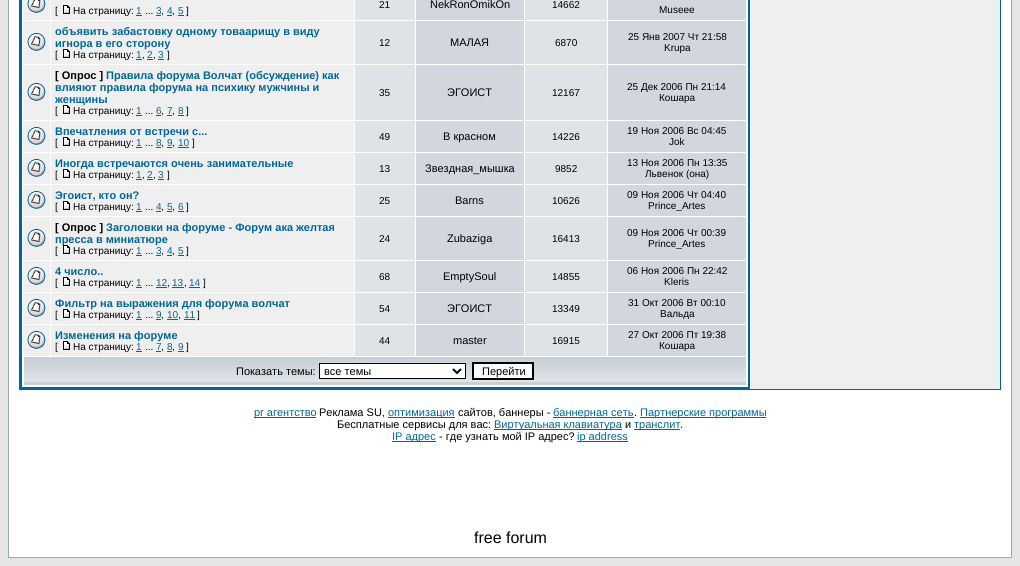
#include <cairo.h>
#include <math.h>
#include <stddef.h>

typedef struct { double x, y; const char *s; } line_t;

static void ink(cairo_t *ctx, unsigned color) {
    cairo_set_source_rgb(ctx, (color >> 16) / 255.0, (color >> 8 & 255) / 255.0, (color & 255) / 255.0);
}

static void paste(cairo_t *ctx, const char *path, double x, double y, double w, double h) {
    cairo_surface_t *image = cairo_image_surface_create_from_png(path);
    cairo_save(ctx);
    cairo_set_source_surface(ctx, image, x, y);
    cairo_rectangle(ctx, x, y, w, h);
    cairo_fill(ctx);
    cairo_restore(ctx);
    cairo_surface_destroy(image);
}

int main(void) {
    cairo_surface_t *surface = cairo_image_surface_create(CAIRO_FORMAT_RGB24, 1020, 566);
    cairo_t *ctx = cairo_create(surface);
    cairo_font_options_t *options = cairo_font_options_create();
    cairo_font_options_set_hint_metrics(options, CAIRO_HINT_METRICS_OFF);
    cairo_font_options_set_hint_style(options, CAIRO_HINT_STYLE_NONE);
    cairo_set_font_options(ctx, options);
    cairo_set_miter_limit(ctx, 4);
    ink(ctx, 0xE5E5E5);
    cairo_paint(ctx);
    ink(ctx, 0xFFFFFF);
    cairo_rectangle(ctx, 8.5, -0.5, 1003, 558);
    cairo_fill_preserve(ctx);
    ink(ctx, 0x98AAB1);
    cairo_set_line_width(ctx, 1);
    cairo_stroke(ctx);
    ink(ctx, 0xEFEFEF);
    cairo_rectangle(ctx, 750, 0, 250, 389);
    cairo_fill(ctx);
    cairo_rectangle(ctx, 19.5, -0.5, 981, 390);
    ink(ctx, 0x006699);
    cairo_stroke(ctx);
    cairo_rectangle(ctx, 21, -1, 728, 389);
    cairo_set_line_width(ctx, 2);
    cairo_stroke(ctx);
    ink(ctx, 0xEFEFEF);
    cairo_rectangle(ctx, 23, 0, 27, 20);
    cairo_fill(ctx);
    paste(ctx, "media/1.png", 27, 0, 19, 13);
    ink(ctx, 0xDEE3E7);
    cairo_rectangle(ctx, 355, 0, 60, 20);
    cairo_fill(ctx);
    cairo_select_font_face(ctx, "Liberation Sans", CAIRO_FONT_SLANT_NORMAL, CAIRO_FONT_WEIGHT_NORMAL);
    cairo_set_font_size(ctx, 10);
    ink(ctx, 0x000000);
    cairo_move_to(ctx, 379, 8);
    cairo_show_text(ctx, "21");
    ink(ctx, 0xD1D7DC);
    cairo_rectangle(ctx, 416, 0, 108, 20);
    cairo_fill(ctx);
    cairo_set_font_size(ctx, 11);
    ink(ctx, 0x000000);
    cairo_move_to(ctx, 430, 8);
    cairo_show_text(ctx, "NekRonOmikOn");
    ink(ctx, 0xDEE3E7);
    cairo_rectangle(ctx, 525, 0, 82, 20);
    cairo_fill(ctx);
    cairo_set_font_size(ctx, 10);
    ink(ctx, 0x000000);
    cairo_move_to(ctx, 552, 8);
    cairo_show_text(ctx, "14662");
    ink(ctx, 0xEFEFEF);
    cairo_rectangle(ctx, 51, 0, 303, 20);
    cairo_fill(ctx);
    ink(ctx, 0x000000);
    cairo_move_to(ctx, 55, 14);
    cairo_show_text(ctx, "[");
    paste(ctx, "media/2.png", 63, 5, 7, 9);
    cairo_move_to(ctx, 73, 14);
    cairo_show_text(ctx, "На страницу:");
    ink(ctx, 0x006699);
    cairo_move_to(ctx, 136, 14);
    cairo_show_text(ctx, "1");
    ink(ctx, 0x000000);
    cairo_move_to(ctx, 145, 14);
    cairo_show_text(ctx, "...");
    ink(ctx, 0x006699);
    cairo_rectangle(ctx, 136, 15, 6, 1);
    cairo_fill(ctx);
    cairo_move_to(ctx, 156, 14);
    cairo_show_text(ctx, "3");
    ink(ctx, 0x000000);
    cairo_move_to(ctx, 161, 14);
    cairo_show_text(ctx, ",");
    ink(ctx, 0x006699);
    cairo_rectangle(ctx, 156, 15, 5, 1);
    cairo_fill(ctx);
    cairo_move_to(ctx, 167, 14);
    cairo_show_text(ctx, "4");
    ink(ctx, 0x000000);
    cairo_move_to(ctx, 172, 14);
    cairo_show_text(ctx, ",");
    ink(ctx, 0x006699);
    cairo_rectangle(ctx, 167, 15, 5, 1);
    cairo_fill(ctx);
    cairo_rectangle(ctx, 178, 15, 6, 1);
    cairo_fill(ctx);
    cairo_move_to(ctx, 178, 14);
    cairo_show_text(ctx, "5");
    ink(ctx, 0x000000);
    cairo_move_to(ctx, 186, 14);
    cairo_show_text(ctx, "]");
    ink(ctx, 0xD1D7DC);
    cairo_rectangle(ctx, 608, 0, 138, 20);
    cairo_fill(ctx);
    ink(ctx, 0x000000);
    cairo_move_to(ctx, 659, 13);
    cairo_show_text(ctx, "Museee");
    ink(ctx, 0xEFEFEF);
    cairo_rectangle(ctx, 23, 21, 27, 43);
    cairo_fill(ctx);
    paste(ctx, "media/3.png", 27, 33, 19, 18);
    cairo_rectangle(ctx, 51, 21, 303, 43);
    cairo_fill(ctx);
    cairo_select_font_face(ctx, "Liberation Sans", CAIRO_FONT_SLANT_NORMAL, CAIRO_FONT_WEIGHT_BOLD);
    cairo_set_font_size(ctx, 11);
    ink(ctx, 0x006699);
    cairo_move_to(ctx, 55, 35);
    cairo_show_text(ctx, "объявить забастовку одному товаарищу в виду");
    cairo_move_to(ctx, 55, 47);
    cairo_show_text(ctx, "игнора в его сторону");
    cairo_select_font_face(ctx, "Liberation Sans", CAIRO_FONT_SLANT_NORMAL, CAIRO_FONT_WEIGHT_NORMAL);
    cairo_set_font_size(ctx, 10);
    ink(ctx, 0x000000);
    cairo_move_to(ctx, 55, 58);
    cairo_show_text(ctx, "[");
    paste(ctx, "media/2.png", 63, 49, 7, 9);
    cairo_move_to(ctx, 73, 58);
    cairo_show_text(ctx, "На страницу:");
    ink(ctx, 0x006699);
    cairo_move_to(ctx, 136, 58);
    cairo_show_text(ctx, "1");
    ink(ctx, 0x000000);
    cairo_move_to(ctx, 142, 58);
    cairo_show_text(ctx, ",");
    ink(ctx, 0x006699);
    cairo_rectangle(ctx, 136, 59, 6, 1);
    cairo_fill(ctx);
    cairo_move_to(ctx, 147, 58);
    cairo_show_text(ctx, "2");
    ink(ctx, 0x000000);
    cairo_move_to(ctx, 153, 58);
    cairo_show_text(ctx, ",");
    ink(ctx, 0x006699);
    cairo_rectangle(ctx, 147, 59, 6, 1);
    cairo_fill(ctx);
    cairo_rectangle(ctx, 158, 59, 6, 1);
    cairo_fill(ctx);
    cairo_move_to(ctx, 158, 58);
    cairo_show_text(ctx, "3");
    ink(ctx, 0x000000);
    cairo_move_to(ctx, 167, 58);
    cairo_show_text(ctx, "]");
    ink(ctx, 0xDEE3E7);
    cairo_rectangle(ctx, 355, 21, 60, 43);
    cairo_fill(ctx);
    ink(ctx, 0x000000);
    cairo_move_to(ctx, 379, 46);
    cairo_show_text(ctx, "12");
    ink(ctx, 0xD1D7DC);
    cairo_rectangle(ctx, 416, 21, 108, 43);
    cairo_fill(ctx);
    cairo_set_font_size(ctx, 11);
    ink(ctx, 0x000000);
    cairo_move_to(ctx, 450, 46);
    cairo_show_text(ctx, "МАЛАЯ");
    ink(ctx, 0xDEE3E7);
    cairo_rectangle(ctx, 525, 21, 82, 43);
    cairo_fill(ctx);
    cairo_set_font_size(ctx, 10);
    ink(ctx, 0x000000);
    cairo_move_to(ctx, 555, 46);
    cairo_show_text(ctx, "6870");
    ink(ctx, 0xD1D7DC);
    cairo_rectangle(ctx, 608, 21, 138, 43);
    cairo_fill(ctx);
    ink(ctx, 0x000000);
    cairo_move_to(ctx, 628, 40);
    cairo_show_text(ctx, "25 Янв 2007 Чт 21:58");
    cairo_move_to(ctx, 664, 51);
    cairo_show_text(ctx, "Krupa");
    ink(ctx, 0xEFEFEF);
    cairo_rectangle(ctx, 23, 65, 27, 55);
    cairo_fill(ctx);
    paste(ctx, "media/4.png", 27, 83, 19, 18);
    cairo_rectangle(ctx, 51, 65, 303, 55);
    cairo_fill(ctx);
    cairo_select_font_face(ctx, "Liberation Sans", CAIRO_FONT_SLANT_NORMAL, CAIRO_FONT_WEIGHT_BOLD);
    cairo_set_font_size(ctx, 11);
    ink(ctx, 0x000000);
    cairo_move_to(ctx, 55, 79);
    cairo_show_text(ctx, "[ Опрос ]");
    ink(ctx, 0x006699);
    {
        static const line_t items[] = {
            {106, 79, "Правила форума Волчат (обсуждение) как"},
            {55, 91, "влияют правила форума на психику мужчины и"},
            {55, 103, "женщины"},
        };
        for (size_t i = 0; i < sizeof items / sizeof *items; i++) {
            cairo_move_to(ctx, items[i].x, items[i].y);
            cairo_show_text(ctx, items[i].s);
        }
    }
    cairo_select_font_face(ctx, "Liberation Sans", CAIRO_FONT_SLANT_NORMAL, CAIRO_FONT_WEIGHT_NORMAL);
    cairo_set_font_size(ctx, 10);
    ink(ctx, 0x000000);
    cairo_move_to(ctx, 55, 114);
    cairo_show_text(ctx, "[");
    paste(ctx, "media/2.png", 63, 105, 7, 9);
    cairo_move_to(ctx, 73, 114);
    cairo_show_text(ctx, "На страницу:");
    ink(ctx, 0x006699);
    cairo_move_to(ctx, 136, 114);
    cairo_show_text(ctx, "1");
    ink(ctx, 0x000000);
    cairo_move_to(ctx, 145, 114);
    cairo_show_text(ctx, "...");
    ink(ctx, 0x006699);
    cairo_rectangle(ctx, 136, 115, 6, 1);
    cairo_fill(ctx);
    cairo_move_to(ctx, 156, 114);
    cairo_show_text(ctx, "6");
    ink(ctx, 0x000000);
    cairo_move_to(ctx, 161, 114);
    cairo_show_text(ctx, ",");
    ink(ctx, 0x006699);
    cairo_rectangle(ctx, 156, 115, 5, 1);
    cairo_fill(ctx);
    cairo_move_to(ctx, 167, 114);
    cairo_show_text(ctx, "7");
    ink(ctx, 0x000000);
    cairo_move_to(ctx, 172, 114);
    cairo_show_text(ctx, ",");
    ink(ctx, 0x006699);
    cairo_rectangle(ctx, 167, 115, 5, 1);
    cairo_fill(ctx);
    cairo_rectangle(ctx, 178, 115, 6, 1);
    cairo_fill(ctx);
    cairo_move_to(ctx, 178, 114);
    cairo_show_text(ctx, "8");
    ink(ctx, 0x000000);
    cairo_move_to(ctx, 186, 114);
    cairo_show_text(ctx, "]");
    ink(ctx, 0xDEE3E7);
    cairo_rectangle(ctx, 355, 65, 60, 55);
    cairo_fill(ctx);
    ink(ctx, 0x000000);
    cairo_move_to(ctx, 379, 96);
    cairo_show_text(ctx, "35");
    ink(ctx, 0xD1D7DC);
    cairo_rectangle(ctx, 416, 65, 108, 55);
    cairo_fill(ctx);
    cairo_set_font_size(ctx, 11);
    ink(ctx, 0x000000);
    cairo_move_to(ctx, 447, 96);
    cairo_show_text(ctx, "ЭГОИСТ");
    ink(ctx, 0xDEE3E7);
    cairo_rectangle(ctx, 525, 65, 82, 55);
    cairo_fill(ctx);
    cairo_set_font_size(ctx, 10);
    ink(ctx, 0x000000);
    cairo_move_to(ctx, 552, 96);
    cairo_show_text(ctx, "12167");
    ink(ctx, 0xD1D7DC);
    cairo_rectangle(ctx, 608, 65, 138, 55);
    cairo_fill(ctx);
    ink(ctx, 0x000000);
    cairo_move_to(ctx, 627, 90);
    cairo_show_text(ctx, "25 Дек 2006 Пн 21:14");
    cairo_move_to(ctx, 659, 101);
    cairo_show_text(ctx, "Кошара");
    ink(ctx, 0xEFEFEF);
    cairo_rectangle(ctx, 23, 121, 27, 31);
    cairo_fill(ctx);
    paste(ctx, "media/4.png", 27, 127, 19, 18);
    cairo_rectangle(ctx, 51, 121, 303, 31);
    cairo_fill(ctx);
    cairo_select_font_face(ctx, "Liberation Sans", CAIRO_FONT_SLANT_NORMAL, CAIRO_FONT_WEIGHT_BOLD);
    cairo_set_font_size(ctx, 11);
    ink(ctx, 0x006699);
    cairo_move_to(ctx, 55, 135);
    cairo_show_text(ctx, "Впечатления от встречи с...");
    cairo_select_font_face(ctx, "Liberation Sans", CAIRO_FONT_SLANT_NORMAL, CAIRO_FONT_WEIGHT_NORMAL);
    cairo_set_font_size(ctx, 10);
    ink(ctx, 0x000000);
    cairo_move_to(ctx, 55, 146);
    cairo_show_text(ctx, "[");
    paste(ctx, "media/2.png", 63, 137, 7, 9);
    cairo_move_to(ctx, 73, 146);
    cairo_show_text(ctx, "На страницу:");
    ink(ctx, 0x006699);
    cairo_move_to(ctx, 136, 146);
    cairo_show_text(ctx, "1");
    ink(ctx, 0x000000);
    cairo_move_to(ctx, 145, 146);
    cairo_show_text(ctx, "...");
    ink(ctx, 0x006699);
    cairo_rectangle(ctx, 136, 147, 6, 1);
    cairo_fill(ctx);
    cairo_move_to(ctx, 156, 146);
    cairo_show_text(ctx, "8");
    ink(ctx, 0x000000);
    cairo_move_to(ctx, 161, 146);
    cairo_show_text(ctx, ",");
    ink(ctx, 0x006699);
    cairo_rectangle(ctx, 156, 147, 5, 1);
    cairo_fill(ctx);
    cairo_move_to(ctx, 167, 146);
    cairo_show_text(ctx, "9");
    ink(ctx, 0x000000);
    cairo_move_to(ctx, 172, 146);
    cairo_show_text(ctx, ",");
    ink(ctx, 0x006699);
    cairo_rectangle(ctx, 167, 147, 5, 1);
    cairo_fill(ctx);
    cairo_rectangle(ctx, 178, 147, 11, 1);
    cairo_fill(ctx);
    cairo_move_to(ctx, 178, 146);
    cairo_show_text(ctx, "10");
    ink(ctx, 0x000000);
    cairo_move_to(ctx, 192, 146);
    cairo_show_text(ctx, "]");
    ink(ctx, 0xDEE3E7);
    cairo_rectangle(ctx, 355, 121, 60, 31);
    cairo_fill(ctx);
    ink(ctx, 0x000000);
    cairo_move_to(ctx, 379, 140);
    cairo_show_text(ctx, "49");
    ink(ctx, 0xD1D7DC);
    cairo_rectangle(ctx, 416, 121, 108, 31);
    cairo_fill(ctx);
    cairo_set_font_size(ctx, 11);
    ink(ctx, 0x000000);
    cairo_move_to(ctx, 443, 140);
    cairo_show_text(ctx, "В красном");
    ink(ctx, 0xDEE3E7);
    cairo_rectangle(ctx, 525, 121, 82, 31);
    cairo_fill(ctx);
    cairo_set_font_size(ctx, 10);
    ink(ctx, 0x000000);
    cairo_move_to(ctx, 552, 140);
    cairo_show_text(ctx, "14226");
    ink(ctx, 0xD1D7DC);
    cairo_rectangle(ctx, 608, 121, 138, 31);
    cairo_fill(ctx);
    ink(ctx, 0x000000);
    cairo_move_to(ctx, 627, 134);
    cairo_show_text(ctx, "19 Ноя 2006 Вс 04:45");
    cairo_move_to(ctx, 669, 145);
    cairo_show_text(ctx, "Jok");
    ink(ctx, 0xEFEFEF);
    cairo_rectangle(ctx, 23, 153, 27, 31);
    cairo_fill(ctx);
    paste(ctx, "media/3.png", 27, 159, 19, 18);
    cairo_rectangle(ctx, 51, 153, 303, 31);
    cairo_fill(ctx);
    cairo_select_font_face(ctx, "Liberation Sans", CAIRO_FONT_SLANT_NORMAL, CAIRO_FONT_WEIGHT_BOLD);
    cairo_set_font_size(ctx, 11);
    ink(ctx, 0x006699);
    cairo_move_to(ctx, 55, 167);
    cairo_show_text(ctx, "Иногда встречаются очень занимательные");
    cairo_select_font_face(ctx, "Liberation Sans", CAIRO_FONT_SLANT_NORMAL, CAIRO_FONT_WEIGHT_NORMAL);
    cairo_set_font_size(ctx, 10);
    ink(ctx, 0x000000);
    cairo_move_to(ctx, 55, 178);
    cairo_show_text(ctx, "[");
    paste(ctx, "media/2.png", 63, 169, 7, 9);
    cairo_move_to(ctx, 73, 178);
    cairo_show_text(ctx, "На страницу:");
    ink(ctx, 0x006699);
    cairo_move_to(ctx, 136, 178);
    cairo_show_text(ctx, "1");
    ink(ctx, 0x000000);
    cairo_move_to(ctx, 142, 178);
    cairo_show_text(ctx, ",");
    ink(ctx, 0x006699);
    cairo_rectangle(ctx, 136, 179, 6, 1);
    cairo_fill(ctx);
    cairo_move_to(ctx, 147, 178);
    cairo_show_text(ctx, "2");
    ink(ctx, 0x000000);
    cairo_move_to(ctx, 153, 178);
    cairo_show_text(ctx, ",");
    ink(ctx, 0x006699);
    cairo_rectangle(ctx, 147, 179, 6, 1);
    cairo_fill(ctx);
    cairo_rectangle(ctx, 158, 179, 6, 1);
    cairo_fill(ctx);
    cairo_move_to(ctx, 158, 178);
    cairo_show_text(ctx, "3");
    ink(ctx, 0x000000);
    cairo_move_to(ctx, 167, 178);
    cairo_show_text(ctx, "]");
    ink(ctx, 0xDEE3E7);
    cairo_rectangle(ctx, 355, 153, 60, 31);
    cairo_fill(ctx);
    ink(ctx, 0x000000);
    cairo_move_to(ctx, 379, 172);
    cairo_show_text(ctx, "13");
    ink(ctx, 0xD1D7DC);
    cairo_rectangle(ctx, 416, 153, 108, 31);
    cairo_fill(ctx);
    cairo_set_font_size(ctx, 11);
    ink(ctx, 0x000000);
    cairo_move_to(ctx, 425, 172);
    cairo_show_text(ctx, "Звездная_мышка");
    ink(ctx, 0xDEE3E7);
    cairo_rectangle(ctx, 525, 153, 82, 31);
    cairo_fill(ctx);
    cairo_set_font_size(ctx, 10);
    ink(ctx, 0x000000);
    cairo_move_to(ctx, 555, 172);
    cairo_show_text(ctx, "9852");
    ink(ctx, 0xD1D7DC);
    cairo_rectangle(ctx, 608, 153, 138, 31);
    cairo_fill(ctx);
    ink(ctx, 0x000000);
    cairo_move_to(ctx, 627, 166);
    cairo_show_text(ctx, "13 Ноя 2006 Пн 13:35");
    cairo_move_to(ctx, 645, 177);
    cairo_show_text(ctx, "Львенoк (она)");
    ink(ctx, 0xEFEFEF);
    cairo_rectangle(ctx, 23, 185, 27, 31);
    cairo_fill(ctx);
    paste(ctx, "media/4.png", 27, 191, 19, 18);
    cairo_rectangle(ctx, 51, 185, 303, 31);
    cairo_fill(ctx);
    cairo_select_font_face(ctx, "Liberation Sans", CAIRO_FONT_SLANT_NORMAL, CAIRO_FONT_WEIGHT_BOLD);
    cairo_set_font_size(ctx, 11);
    ink(ctx, 0x006699);
    cairo_move_to(ctx, 55, 199);
    cairo_show_text(ctx, "Эгоист, кто он?");
    cairo_select_font_face(ctx, "Liberation Sans", CAIRO_FONT_SLANT_NORMAL, CAIRO_FONT_WEIGHT_NORMAL);
    cairo_set_font_size(ctx, 10);
    ink(ctx, 0x000000);
    cairo_move_to(ctx, 55, 210);
    cairo_show_text(ctx, "[");
    paste(ctx, "media/2.png", 63, 201, 7, 9);
    cairo_move_to(ctx, 73, 210);
    cairo_show_text(ctx, "На страницу:");
    ink(ctx, 0x006699);
    cairo_move_to(ctx, 136, 210);
    cairo_show_text(ctx, "1");
    ink(ctx, 0x000000);
    cairo_move_to(ctx, 145, 210);
    cairo_show_text(ctx, "...");
    ink(ctx, 0x006699);
    cairo_rectangle(ctx, 136, 211, 6, 1);
    cairo_fill(ctx);
    cairo_move_to(ctx, 156, 210);
    cairo_show_text(ctx, "4");
    ink(ctx, 0x000000);
    cairo_move_to(ctx, 161, 210);
    cairo_show_text(ctx, ",");
    ink(ctx, 0x006699);
    cairo_rectangle(ctx, 156, 211, 5, 1);
    cairo_fill(ctx);
    cairo_move_to(ctx, 167, 210);
    cairo_show_text(ctx, "5");
    ink(ctx, 0x000000);
    cairo_move_to(ctx, 172, 210);
    cairo_show_text(ctx, ",");
    ink(ctx, 0x006699);
    cairo_rectangle(ctx, 167, 211, 5, 1);
    cairo_fill(ctx);
    cairo_rectangle(ctx, 178, 211, 6, 1);
    cairo_fill(ctx);
    cairo_move_to(ctx, 178, 210);
    cairo_show_text(ctx, "6");
    ink(ctx, 0x000000);
    cairo_move_to(ctx, 186, 210);
    cairo_show_text(ctx, "]");
    ink(ctx, 0xDEE3E7);
    cairo_rectangle(ctx, 355, 185, 60, 31);
    cairo_fill(ctx);
    ink(ctx, 0x000000);
    cairo_move_to(ctx, 379, 204);
    cairo_show_text(ctx, "25");
    ink(ctx, 0xD1D7DC);
    cairo_rectangle(ctx, 416, 185, 108, 31);
    cairo_fill(ctx);
    cairo_set_font_size(ctx, 11);
    ink(ctx, 0x000000);
    cairo_move_to(ctx, 455, 204);
    cairo_show_text(ctx, "Barns");
    ink(ctx, 0xDEE3E7);
    cairo_rectangle(ctx, 525, 185, 82, 31);
    cairo_fill(ctx);
    cairo_set_font_size(ctx, 10);
    ink(ctx, 0x000000);
    cairo_move_to(ctx, 552, 204);
    cairo_show_text(ctx, "10626");
    ink(ctx, 0xD1D7DC);
    cairo_rectangle(ctx, 608, 185, 138, 31);
    cairo_fill(ctx);
    ink(ctx, 0x000000);
    cairo_move_to(ctx, 627, 198);
    cairo_show_text(ctx, "09 Ноя 2006 Чт 04:40");
    cairo_move_to(ctx, 648, 209);
    cairo_show_text(ctx, "Prince_Artes");
    ink(ctx, 0xEFEFEF);
    cairo_rectangle(ctx, 23, 217, 27, 43);
    cairo_fill(ctx);
    paste(ctx, "media/4.png", 27, 229, 19, 18);
    cairo_rectangle(ctx, 51, 217, 303, 43);
    cairo_fill(ctx);
    cairo_select_font_face(ctx, "Liberation Sans", CAIRO_FONT_SLANT_NORMAL, CAIRO_FONT_WEIGHT_BOLD);
    cairo_set_font_size(ctx, 11);
    ink(ctx, 0x000000);
    cairo_move_to(ctx, 55, 231);
    cairo_show_text(ctx, "[ Опрос ]");
    ink(ctx, 0x006699);
    cairo_move_to(ctx, 106, 231);
    cairo_show_text(ctx, "Заголовки на форуме - Форум ака желтая");
    cairo_move_to(ctx, 55, 243);
    cairo_show_text(ctx, "пресса в миниатюре");
    cairo_select_font_face(ctx, "Liberation Sans", CAIRO_FONT_SLANT_NORMAL, CAIRO_FONT_WEIGHT_NORMAL);
    cairo_set_font_size(ctx, 10);
    ink(ctx, 0x000000);
    cairo_move_to(ctx, 55, 254);
    cairo_show_text(ctx, "[");
    paste(ctx, "media/2.png", 63, 245, 7, 9);
    cairo_move_to(ctx, 73, 254);
    cairo_show_text(ctx, "На страницу:");
    ink(ctx, 0x006699);
    cairo_move_to(ctx, 136, 254);
    cairo_show_text(ctx, "1");
    ink(ctx, 0x000000);
    cairo_move_to(ctx, 145, 254);
    cairo_show_text(ctx, "...");
    ink(ctx, 0x006699);
    cairo_rectangle(ctx, 136, 255, 6, 1);
    cairo_fill(ctx);
    cairo_move_to(ctx, 156, 254);
    cairo_show_text(ctx, "3");
    ink(ctx, 0x000000);
    cairo_move_to(ctx, 161, 254);
    cairo_show_text(ctx, ",");
    ink(ctx, 0x006699);
    cairo_rectangle(ctx, 156, 255, 5, 1);
    cairo_fill(ctx);
    cairo_move_to(ctx, 167, 254);
    cairo_show_text(ctx, "4");
    ink(ctx, 0x000000);
    cairo_move_to(ctx, 172, 254);
    cairo_show_text(ctx, ",");
    ink(ctx, 0x006699);
    cairo_rectangle(ctx, 167, 255, 5, 1);
    cairo_fill(ctx);
    cairo_rectangle(ctx, 178, 255, 6, 1);
    cairo_fill(ctx);
    cairo_move_to(ctx, 178, 254);
    cairo_show_text(ctx, "5");
    ink(ctx, 0x000000);
    cairo_move_to(ctx, 186, 254);
    cairo_show_text(ctx, "]");
    ink(ctx, 0xDEE3E7);
    cairo_rectangle(ctx, 355, 217, 60, 43);
    cairo_fill(ctx);
    ink(ctx, 0x000000);
    cairo_move_to(ctx, 379, 242);
    cairo_show_text(ctx, "24");
    ink(ctx, 0xD1D7DC);
    cairo_rectangle(ctx, 416, 217, 108, 43);
    cairo_fill(ctx);
    cairo_set_font_size(ctx, 11);
    ink(ctx, 0x000000);
    cairo_move_to(ctx, 447, 242);
    cairo_show_text(ctx, "Zubaziga");
    ink(ctx, 0xDEE3E7);
    cairo_rectangle(ctx, 525, 217, 82, 43);
    cairo_fill(ctx);
    cairo_set_font_size(ctx, 10);
    ink(ctx, 0x000000);
    cairo_move_to(ctx, 552, 242);
    cairo_show_text(ctx, "16413");
    ink(ctx, 0xD1D7DC);
    cairo_rectangle(ctx, 608, 217, 138, 43);
    cairo_fill(ctx);
    ink(ctx, 0x000000);
    cairo_move_to(ctx, 627, 236);
    cairo_show_text(ctx, "09 Ноя 2006 Чт 00:39");
    cairo_move_to(ctx, 648, 247);
    cairo_show_text(ctx, "Prince_Artes");
    ink(ctx, 0xEFEFEF);
    cairo_rectangle(ctx, 23, 261, 27, 31);
    cairo_fill(ctx);
    paste(ctx, "media/4.png", 27, 267, 19, 18);
    cairo_rectangle(ctx, 51, 261, 303, 31);
    cairo_fill(ctx);
    cairo_select_font_face(ctx, "Liberation Sans", CAIRO_FONT_SLANT_NORMAL, CAIRO_FONT_WEIGHT_BOLD);
    cairo_set_font_size(ctx, 11);
    ink(ctx, 0x006699);
    cairo_move_to(ctx, 55, 275);
    cairo_show_text(ctx, "4 число..");
    cairo_select_font_face(ctx, "Liberation Sans", CAIRO_FONT_SLANT_NORMAL, CAIRO_FONT_WEIGHT_NORMAL);
    cairo_set_font_size(ctx, 10);
    ink(ctx, 0x000000);
    cairo_move_to(ctx, 55, 286);
    cairo_show_text(ctx, "[");
    paste(ctx, "media/2.png", 63, 277, 7, 9);
    cairo_move_to(ctx, 73, 286);
    cairo_show_text(ctx, "На страницу:");
    ink(ctx, 0x006699);
    cairo_move_to(ctx, 136, 286);
    cairo_show_text(ctx, "1");
    ink(ctx, 0x000000);
    cairo_move_to(ctx, 145, 286);
    cairo_show_text(ctx, "...");
    ink(ctx, 0x006699);
    cairo_rectangle(ctx, 136, 287, 6, 1);
    cairo_fill(ctx);
    cairo_move_to(ctx, 156, 286);
    cairo_show_text(ctx, "12");
    ink(ctx, 0x000000);
    cairo_move_to(ctx, 167, 286);
    cairo_show_text(ctx, ",");
    ink(ctx, 0x006699);
    cairo_rectangle(ctx, 156, 287, 11, 1);
    cairo_fill(ctx);
    cairo_move_to(ctx, 172, 286);
    cairo_show_text(ctx, "13");
    ink(ctx, 0x000000);
    cairo_move_to(ctx, 184, 286);
    cairo_show_text(ctx, ",");
    ink(ctx, 0x006699);
    cairo_rectangle(ctx, 172, 287, 12, 1);
    cairo_fill(ctx);
    cairo_rectangle(ctx, 189, 287, 11, 1);
    cairo_fill(ctx);
    cairo_move_to(ctx, 189, 286);
    cairo_show_text(ctx, "14");
    ink(ctx, 0x000000);
    cairo_move_to(ctx, 203, 286);
    cairo_show_text(ctx, "]");
    ink(ctx, 0xDEE3E7);
    cairo_rectangle(ctx, 355, 261, 60, 31);
    cairo_fill(ctx);
    ink(ctx, 0x000000);
    cairo_move_to(ctx, 379, 280);
    cairo_show_text(ctx, "68");
    ink(ctx, 0xD1D7DC);
    cairo_rectangle(ctx, 416, 261, 108, 31);
    cairo_fill(ctx);
    cairo_set_font_size(ctx, 11);
    ink(ctx, 0x000000);
    cairo_move_to(ctx, 443, 280);
    cairo_show_text(ctx, "EmptySoul");
    ink(ctx, 0xDEE3E7);
    cairo_rectangle(ctx, 525, 261, 82, 31);
    cairo_fill(ctx);
    cairo_set_font_size(ctx, 10);
    ink(ctx, 0x000000);
    cairo_move_to(ctx, 552, 280);
    cairo_show_text(ctx, "14855");
    ink(ctx, 0xD1D7DC);
    cairo_rectangle(ctx, 608, 261, 138, 31);
    cairo_fill(ctx);
    ink(ctx, 0x000000);
    cairo_move_to(ctx, 627, 274);
    cairo_show_text(ctx, "06 Ноя 2006 Пн 22:42");
    cairo_move_to(ctx, 664, 285);
    cairo_show_text(ctx, "Kleris");
    ink(ctx, 0xEFEFEF);
    cairo_rectangle(ctx, 23, 293, 27, 31);
    cairo_fill(ctx);
    paste(ctx, "media/4.png", 27, 299, 19, 18);
    cairo_rectangle(ctx, 51, 293, 303, 31);
    cairo_fill(ctx);
    cairo_select_font_face(ctx, "Liberation Sans", CAIRO_FONT_SLANT_NORMAL, CAIRO_FONT_WEIGHT_BOLD);
    cairo_set_font_size(ctx, 11);
    ink(ctx, 0x006699);
    cairo_move_to(ctx, 55, 307);
    cairo_show_text(ctx, "Фильтр на выражения для форума волчат");
    cairo_select_font_face(ctx, "Liberation Sans", CAIRO_FONT_SLANT_NORMAL, CAIRO_FONT_WEIGHT_NORMAL);
    cairo_set_font_size(ctx, 10);
    ink(ctx, 0x000000);
    cairo_move_to(ctx, 55, 318);
    cairo_show_text(ctx, "[");
    paste(ctx, "media/2.png", 63, 309, 7, 9);
    cairo_move_to(ctx, 73, 318);
    cairo_show_text(ctx, "На страницу:");
    ink(ctx, 0x006699);
    cairo_move_to(ctx, 136, 318);
    cairo_show_text(ctx, "1");
    ink(ctx, 0x000000);
    cairo_move_to(ctx, 145, 318);
    cairo_show_text(ctx, "...");
    ink(ctx, 0x006699);
    cairo_rectangle(ctx, 136, 319, 6, 1);
    cairo_fill(ctx);
    cairo_move_to(ctx, 156, 318);
    cairo_show_text(ctx, "9");
    ink(ctx, 0x000000);
    cairo_move_to(ctx, 161, 318);
    cairo_show_text(ctx, ",");
    ink(ctx, 0x006699);
    cairo_rectangle(ctx, 156, 319, 5, 1);
    cairo_fill(ctx);
    cairo_move_to(ctx, 167, 318);
    cairo_show_text(ctx, "10");
    ink(ctx, 0x000000);
    cairo_move_to(ctx, 178, 318);
    cairo_show_text(ctx, ",");
    ink(ctx, 0x006699);
    cairo_rectangle(ctx, 167, 319, 11, 1);
    cairo_fill(ctx);
    cairo_rectangle(ctx, 184, 319, 11, 1);
    cairo_fill(ctx);
    cairo_move_to(ctx, 184, 318);
    cairo_show_text(ctx, "11");
    ink(ctx, 0x000000);
    cairo_move_to(ctx, 197, 318);
    cairo_show_text(ctx, "]");
    ink(ctx, 0xDEE3E7);
    cairo_rectangle(ctx, 355, 293, 60, 31);
    cairo_fill(ctx);
    ink(ctx, 0x000000);
    cairo_move_to(ctx, 379, 312);
    cairo_show_text(ctx, "54");
    ink(ctx, 0xD1D7DC);
    cairo_rectangle(ctx, 416, 293, 108, 31);
    cairo_fill(ctx);
    cairo_set_font_size(ctx, 11);
    ink(ctx, 0x000000);
    cairo_move_to(ctx, 447, 312);
    cairo_show_text(ctx, "ЭГОИСТ");
    ink(ctx, 0xDEE3E7);
    cairo_rectangle(ctx, 525, 293, 82, 31);
    cairo_fill(ctx);
    cairo_set_font_size(ctx, 10);
    ink(ctx, 0x000000);
    cairo_move_to(ctx, 552, 312);
    cairo_show_text(ctx, "13349");
    ink(ctx, 0xD1D7DC);
    cairo_rectangle(ctx, 608, 293, 138, 31);
    cairo_fill(ctx);
    ink(ctx, 0x000000);
    cairo_move_to(ctx, 628, 306);
    cairo_show_text(ctx, "31 Окт 2006 Вт 00:10");
    cairo_move_to(ctx, 660, 317);
    cairo_show_text(ctx, "Вальда");
    ink(ctx, 0xEFEFEF);
    cairo_rectangle(ctx, 23, 325, 27, 31);
    cairo_fill(ctx);
    paste(ctx, "media/4.png", 27, 331, 19, 18);
    cairo_rectangle(ctx, 51, 325, 303, 31);
    cairo_fill(ctx);
    cairo_select_font_face(ctx, "Liberation Sans", CAIRO_FONT_SLANT_NORMAL, CAIRO_FONT_WEIGHT_BOLD);
    cairo_set_font_size(ctx, 11);
    ink(ctx, 0x006699);
    cairo_move_to(ctx, 55, 339);
    cairo_show_text(ctx, "Изменения на форуме");
    cairo_select_font_face(ctx, "Liberation Sans", CAIRO_FONT_SLANT_NORMAL, CAIRO_FONT_WEIGHT_NORMAL);
    cairo_set_font_size(ctx, 10);
    ink(ctx, 0x000000);
    cairo_move_to(ctx, 55, 350);
    cairo_show_text(ctx, "[");
    paste(ctx, "media/2.png", 63, 341, 7, 9);
    cairo_move_to(ctx, 73, 350);
    cairo_show_text(ctx, "На страницу:");
    ink(ctx, 0x006699);
    cairo_move_to(ctx, 136, 350);
    cairo_show_text(ctx, "1");
    ink(ctx, 0x000000);
    cairo_move_to(ctx, 145, 350);
    cairo_show_text(ctx, "...");
    ink(ctx, 0x006699);
    cairo_rectangle(ctx, 136, 351, 6, 1);
    cairo_fill(ctx);
    cairo_move_to(ctx, 156, 350);
    cairo_show_text(ctx, "7");
    ink(ctx, 0x000000);
    cairo_move_to(ctx, 161, 350);
    cairo_show_text(ctx, ",");
    ink(ctx, 0x006699);
    cairo_rectangle(ctx, 156, 351, 5, 1);
    cairo_fill(ctx);
    cairo_move_to(ctx, 167, 350);
    cairo_show_text(ctx, "8");
    ink(ctx, 0x000000);
    cairo_move_to(ctx, 172, 350);
    cairo_show_text(ctx, ",");
    ink(ctx, 0x006699);
    cairo_rectangle(ctx, 167, 351, 5, 1);
    cairo_fill(ctx);
    cairo_rectangle(ctx, 178, 351, 6, 1);
    cairo_fill(ctx);
    cairo_move_to(ctx, 178, 350);
    cairo_show_text(ctx, "9");
    ink(ctx, 0x000000);
    cairo_move_to(ctx, 186, 350);
    cairo_show_text(ctx, "]");
    ink(ctx, 0xDEE3E7);
    cairo_rectangle(ctx, 355, 325, 60, 31);
    cairo_fill(ctx);
    ink(ctx, 0x000000);
    cairo_move_to(ctx, 379, 344);
    cairo_show_text(ctx, "44");
    ink(ctx, 0xD1D7DC);
    cairo_rectangle(ctx, 416, 325, 108, 31);
    cairo_fill(ctx);
    cairo_set_font_size(ctx, 11);
    ink(ctx, 0x000000);
    cairo_move_to(ctx, 453, 344);
    cairo_show_text(ctx, "master");
    ink(ctx, 0xDEE3E7);
    cairo_rectangle(ctx, 525, 325, 82, 31);
    cairo_fill(ctx);
    cairo_set_font_size(ctx, 10);
    ink(ctx, 0x000000);
    cairo_move_to(ctx, 552, 344);
    cairo_show_text(ctx, "16915");
    ink(ctx, 0xD1D7DC);
    cairo_rectangle(ctx, 608, 325, 138, 31);
    cairo_fill(ctx);
    ink(ctx, 0x000000);
    cairo_move_to(ctx, 628, 338);
    cairo_show_text(ctx, "27 Окт 2006 Пт 19:38");
    cairo_move_to(ctx, 659, 349);
    cairo_show_text(ctx, "Кошара");
    paste(ctx, "media/5.png", 24, 357, 722, 28);
    cairo_set_font_size(ctx, 11);
    cairo_move_to(ctx, 236, 375);
    cairo_show_text(ctx, "Показать темы:");
    ink(ctx, 0xFFFFFF);
    cairo_rectangle(ctx, 319.5, 363.5, 146, 15);
    cairo_fill_preserve(ctx);
    ink(ctx, 0x000000);
    cairo_set_line_width(ctx, 1);
    cairo_stroke(ctx);
    cairo_new_path(ctx);
    cairo_move_to(ctx, 453, 369);
    cairo_line_to(ctx, 457, 373);
    cairo_line_to(ctx, 461, 369);
    cairo_set_line_width(ctx, 2);
    cairo_stroke(ctx);
    cairo_move_to(ctx, 324, 375);
    cairo_show_text(ctx, "все темы");
    ink(ctx, 0xFAFAFA);
    cairo_rectangle(ctx, 473, 363, 60, 16);
    cairo_fill_preserve(ctx);
    ink(ctx, 0x000000);
    cairo_stroke(ctx);
    cairo_move_to(ctx, 482, 375);
    cairo_show_text(ctx, "Перейти");
    ink(ctx, 0x006699);
    cairo_rectangle(ctx, 254, 417, 62, 1);
    cairo_fill(ctx);
    cairo_move_to(ctx, 254, 416);
    cairo_show_text(ctx, "pr агентство");
    ink(ctx, 0x000000);
    cairo_move_to(ctx, 319, 416);
    cairo_show_text(ctx, "Реклама SU,");
    ink(ctx, 0x006699);
    cairo_rectangle(ctx, 388, 417, 67, 1);
    cairo_fill(ctx);
    cairo_move_to(ctx, 388, 416);
    cairo_show_text(ctx, "оптимизация");
    ink(ctx, 0x000000);
    cairo_move_to(ctx, 458, 416);
    cairo_show_text(ctx, "сайтов, баннеры -");
    ink(ctx, 0x006699);
    cairo_rectangle(ctx, 553, 417, 81, 1);
    cairo_fill(ctx);
    cairo_move_to(ctx, 553, 416);
    cairo_show_text(ctx, "баннерная сеть");
    ink(ctx, 0x000000);
    cairo_move_to(ctx, 634, 416);
    cairo_show_text(ctx, ".");
    ink(ctx, 0x006699);
    cairo_rectangle(ctx, 640, 417, 126, 1);
    cairo_fill(ctx);
    cairo_move_to(ctx, 640, 416);
    cairo_show_text(ctx, "Партнерские программы");
    ink(ctx, 0x000000);
    cairo_move_to(ctx, 337, 428);
    cairo_show_text(ctx, "Бесплатные сервисы для вас:");
    ink(ctx, 0x006699);
    cairo_rectangle(ctx, 494, 429, 128, 1);
    cairo_fill(ctx);
    cairo_move_to(ctx, 494, 428);
    cairo_show_text(ctx, "Виртуальная клавиатура");
    ink(ctx, 0x000000);
    cairo_move_to(ctx, 625, 428);
    cairo_show_text(ctx, "и");
    ink(ctx, 0x006699);
    cairo_rectangle(ctx, 634, 429, 46, 1);
    cairo_fill(ctx);
    cairo_move_to(ctx, 634, 428);
    cairo_show_text(ctx, "транслит");
    ink(ctx, 0x000000);
    cairo_move_to(ctx, 680, 428);
    cairo_show_text(ctx, ".");
    ink(ctx, 0x006699);
    cairo_rectangle(ctx, 392, 441, 44, 1);
    cairo_fill(ctx);
    cairo_move_to(ctx, 392, 440);
    cairo_show_text(ctx, "IP адрес");
    ink(ctx, 0x000000);
    cairo_move_to(ctx, 439, 440);
    cairo_show_text(ctx, "- где узнать мой IP адрес?");
    ink(ctx, 0x006699);
    cairo_rectangle(ctx, 577, 441, 51, 1);
    cairo_fill(ctx);
    cairo_move_to(ctx, 577, 440);
    cairo_show_text(ctx, "ip address");
    cairo_set_font_size(ctx, 16);
    ink(ctx, 0x000000);
    cairo_move_to(ctx, 474, 543);
    cairo_show_text(ctx, "free forum");
    cairo_surface_write_to_png(surface, "image.png");
    cairo_font_options_destroy(options);
    cairo_destroy(ctx);
    cairo_surface_destroy(surface);
    return 0;
}
